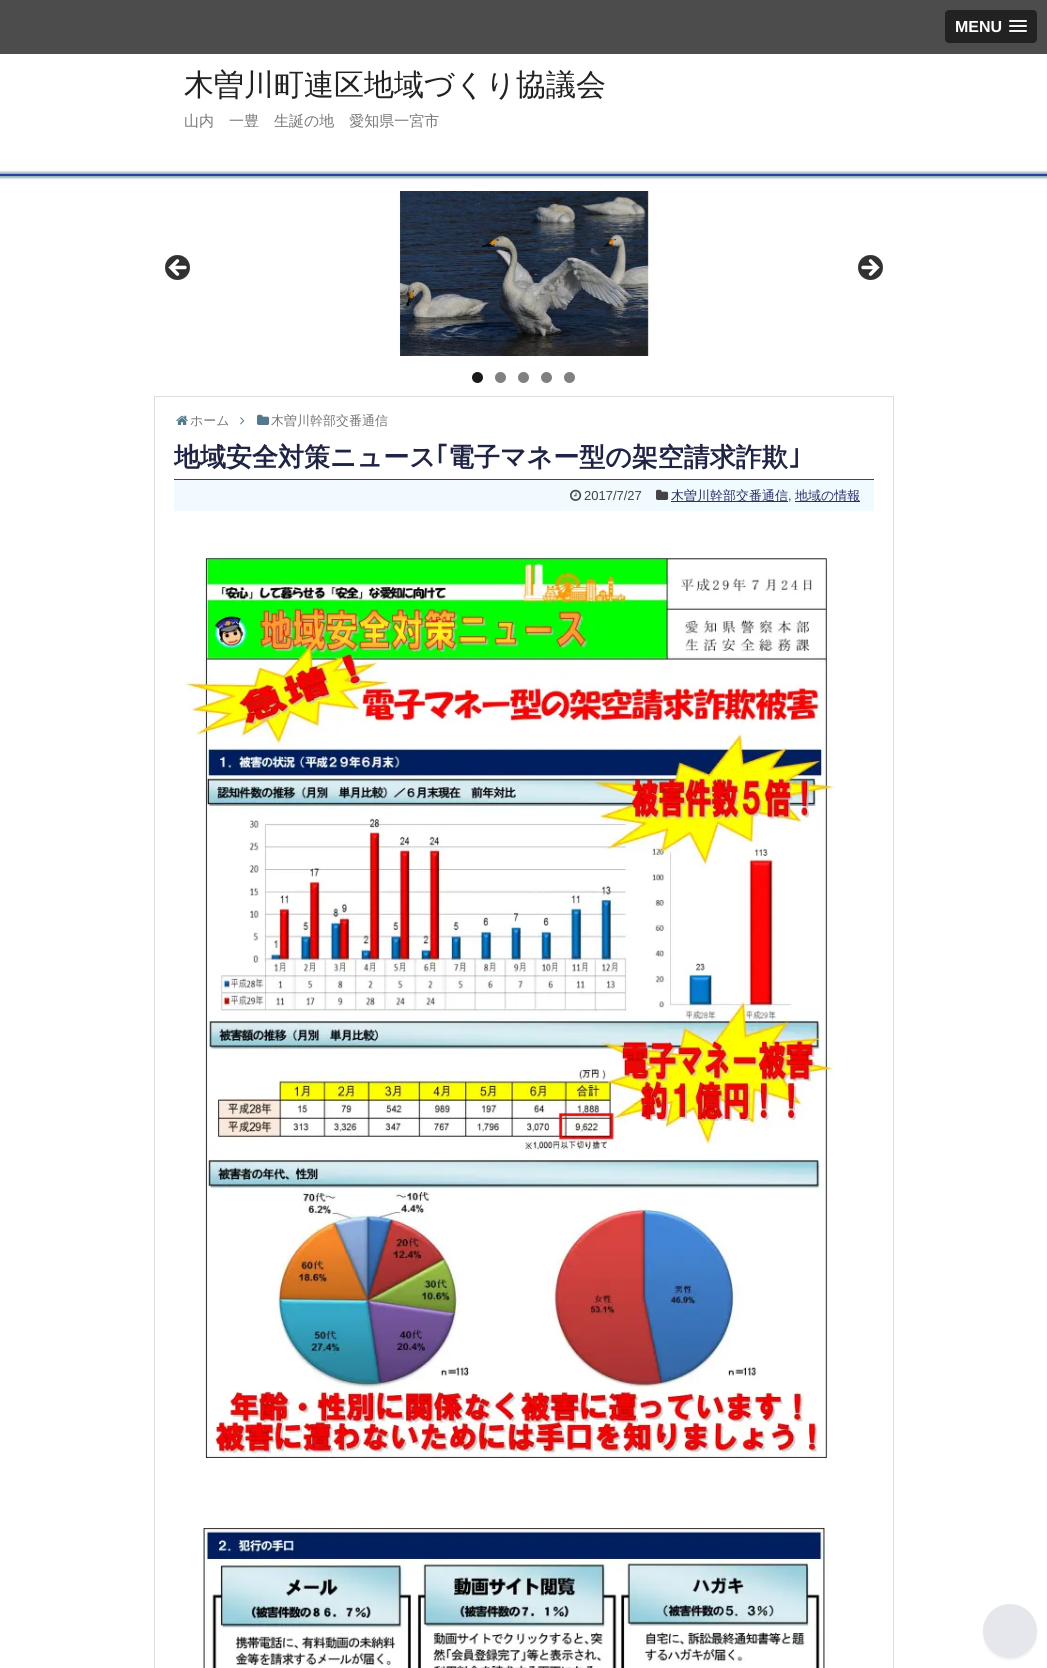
#include <cairo.h>
#include <math.h>
#include <stddef.h>


static void ink(cairo_t *ctx, unsigned color) {
    cairo_set_source_rgb(ctx, (color >> 16) / 255.0, (color >> 8 & 255) / 255.0, (color & 255) / 255.0);
}

static void round_path(cairo_t *ctx, double x, double y, double w, double h, double r) {
    cairo_new_sub_path(ctx);
    cairo_arc(ctx, x + w - r, y + h - r, r, 0, M_PI / 2);
    cairo_arc(ctx, x + r, y + h - r, r, M_PI / 2, M_PI);
    cairo_arc(ctx, x + r, y + r, r, M_PI, 1.5 * M_PI);
    cairo_arc(ctx, x + w - r, y + r, r, 1.5 * M_PI, 2 * M_PI);
    cairo_close_path(ctx);
}

static void blur_box(cairo_t *ctx, double x, double y, double w, double h, double r, double blur, double alpha) {
    cairo_push_group_with_content(ctx, CAIRO_CONTENT_ALPHA);
    cairo_set_operator(ctx, CAIRO_OPERATOR_SOURCE);
    for (int i = 15; i >= -15 && fmin(w, h) + blur * i / 3 > 0; i -= 2) {
        double e = blur * i / 6;
        cairo_set_source_rgba(ctx, 0, 0, 0, alpha * erfc((i - 1) / 8.5) / 2);
        round_path(ctx, x - e, y - e, w + 2 * e, h + 2 * e, fmax(0, fmin(r + e + blur * .6, fmin(w, h) / 2 + e)));
        cairo_fill(ctx);
    }
    cairo_pattern_t *soft = cairo_pop_group(ctx);
    cairo_mask(ctx, soft);
    cairo_pattern_destroy(soft);
}

static void paste(cairo_t *ctx, const char *path, double x, double y, double w, double h) {
    cairo_surface_t *image = cairo_image_surface_create_from_png(path);
    cairo_save(ctx);
    cairo_set_source_surface(ctx, image, x, y);
    cairo_rectangle(ctx, x, y, w, h);
    cairo_fill(ctx);
    cairo_restore(ctx);
    cairo_surface_destroy(image);
}

int main(void) {
    cairo_surface_t *surface = cairo_image_surface_create(CAIRO_FORMAT_RGB24, 1047, 1668);
    cairo_t *ctx = cairo_create(surface);
    cairo_font_options_t *options = cairo_font_options_create();
    cairo_font_options_set_hint_metrics(options, CAIRO_HINT_METRICS_OFF);
    cairo_font_options_set_hint_style(options, CAIRO_HINT_STYLE_NONE);
    cairo_set_font_options(ctx, options);
    cairo_set_miter_limit(ctx, 4);
    ink(ctx, 0xFFFFFF);
    cairo_paint(ctx);
    ink(ctx, 0x4C4C4C);
    cairo_rectangle(ctx, 0, 0, 1047, 54);
    cairo_fill(ctx);
    ink(ctx, 0x222222);
    round_path(ctx, 945, 10, 92, 33, 4);
    cairo_fill(ctx);
    cairo_select_font_face(ctx, "Liberation Sans", CAIRO_FONT_SLANT_NORMAL, CAIRO_FONT_WEIGHT_BOLD);
    cairo_set_font_size(ctx, 16);
    ink(ctx, 0xFFFFFF);
    cairo_move_to(ctx, 955, 32);
    cairo_show_text(ctx, "MENU");
    ink(ctx, 0x1A1A1A);
    cairo_new_path(ctx);
    cairo_move_to(ctx, 1009, 21.5);
    cairo_curve_to(ctx, 1008, 23.5, 1012.5, 23, 1012.5, 23);
    cairo_line_to(ctx, 1023.5, 23);
    cairo_curve_to(ctx, 1023.5, 23, 1028, 23.5, 1027, 21.5);
    cairo_curve_to(ctx, 1026, 22.5, 1019.5, 22, 1018, 22);
    cairo_curve_to(ctx, 1016.5, 22, 1010, 22.5, 1009, 21.5);
    cairo_close_path(ctx);
    cairo_fill(ctx);
    ink(ctx, 0xF5F5F5);
    round_path(ctx, 1009, 20, 18, 2, 1);
    cairo_fill(ctx);
    ink(ctx, 0x1A1A1A);
    cairo_new_path(ctx);
    cairo_move_to(ctx, 1009, 26.5);
    cairo_curve_to(ctx, 1008, 28.5, 1012.5, 28, 1012.5, 28);
    cairo_line_to(ctx, 1023.5, 28);
    cairo_curve_to(ctx, 1023.5, 28, 1028, 28.5, 1027, 26.5);
    cairo_curve_to(ctx, 1026, 27.5, 1019.5, 27, 1018, 27);
    cairo_curve_to(ctx, 1016.5, 27, 1010, 27.5, 1009, 26.5);
    cairo_close_path(ctx);
    cairo_fill(ctx);
    ink(ctx, 0xF5F5F5);
    round_path(ctx, 1009, 25, 18, 2, 1);
    cairo_fill(ctx);
    ink(ctx, 0x1A1A1A);
    cairo_new_path(ctx);
    cairo_move_to(ctx, 1009, 31.5);
    cairo_curve_to(ctx, 1008, 33.5, 1012.5, 33, 1012.5, 33);
    cairo_line_to(ctx, 1023.5, 33);
    cairo_curve_to(ctx, 1023.5, 33, 1028, 33.5, 1027, 31.5);
    cairo_curve_to(ctx, 1026, 32.5, 1019.5, 32, 1018, 32);
    cairo_curve_to(ctx, 1016.5, 32, 1010, 32.5, 1009, 31.5);
    cairo_close_path(ctx);
    cairo_fill(ctx);
    ink(ctx, 0xF5F5F5);
    round_path(ctx, 1009, 30, 18, 2, 1);
    cairo_fill(ctx);
    cairo_select_font_face(ctx, "WenQuanYi Zen Hei Medium", CAIRO_FONT_SLANT_NORMAL, CAIRO_FONT_WEIGHT_NORMAL);
    cairo_set_font_size(ctx, 30);
    ink(ctx, 0x222222);
    cairo_move_to(ctx, 184, 95);
    cairo_show_text(ctx, "木曽川町連区地域づくり協議会");
    cairo_set_font_size(ctx, 15);
    ink(ctx, 0x777777);
    cairo_move_to(ctx, 184, 126);
    cairo_show_text(ctx, "山内　一豊　生誕の地　愛知県一宮市");
    ink(ctx, 0x95B0BC);
    blur_box(ctx, -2, 172, 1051, 6, 0, 1, 1);
    ink(ctx, 0x2F3C9B);
    cairo_rectangle(ctx, 0, 174, 1047, 2);
    cairo_fill(ctx);
    paste(ctx, "media/1.png", 398, 191, 255, 165);
    paste(ctx, "media/2.png", 165, 255, 25, 25);
    paste(ctx, "media/3.png", 858, 255, 25, 25);
    ink(ctx, 0x1A1A1A);
    cairo_arc(ctx, 477.5, 377.5, 5.5, 0, 2 * M_PI);
    cairo_fill(ctx);
    ink(ctx, 0x808080);
    cairo_arc(ctx, 500.5, 377.5, 5.5, 0, 2 * M_PI);
    cairo_fill(ctx);
    cairo_arc(ctx, 523.5, 377.5, 5.5, 0, 2 * M_PI);
    cairo_fill(ctx);
    cairo_arc(ctx, 546.5, 377.5, 5.5, 0, 2 * M_PI);
    cairo_fill(ctx);
    cairo_arc(ctx, 569.5, 377.5, 5.5, 0, 2 * M_PI);
    cairo_fill(ctx);
    cairo_rectangle(ctx, 154.5, 396.5, 739, 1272);
    ink(ctx, 0xDDDDDD);
    cairo_set_line_width(ctx, 1);
    cairo_stroke(ctx);
    paste(ctx, "media/4.png", 176, 415, 12, 10);
    cairo_set_font_size(ctx, 13);
    ink(ctx, 0x777777);
    cairo_move_to(ctx, 190, 425);
    cairo_show_text(ctx, "ホーム");
    paste(ctx, "media/5.png", 240, 417, 5, 8);
    paste(ctx, "media/6.png", 257, 414, 13, 11);
    cairo_move_to(ctx, 271, 425);
    cairo_show_text(ctx, "木曽川幹部交番通信");
    cairo_select_font_face(ctx, "WenQuanYi Zen Hei", CAIRO_FONT_SLANT_NORMAL, CAIRO_FONT_WEIGHT_BOLD);
    cairo_set_font_size(ctx, 26);
    ink(ctx, 0x1F2344);
    cairo_move_to(ctx, 174, 466);
    cairo_show_text(ctx, "地域安全対策ニュース");
    cairo_select_font_face(ctx, "IPAPGothic", CAIRO_FONT_SLANT_NORMAL, CAIRO_FONT_WEIGHT_BOLD);
    cairo_move_to(ctx, 435, 466);
    cairo_show_text(ctx, "｢");
    cairo_select_font_face(ctx, "WenQuanYi Zen Hei", CAIRO_FONT_SLANT_NORMAL, CAIRO_FONT_WEIGHT_BOLD);
    cairo_move_to(ctx, 448, 466);
    cairo_show_text(ctx, "電子マネー型の架空請求詐欺");
    cairo_select_font_face(ctx, "IPAPGothic", CAIRO_FONT_SLANT_NORMAL, CAIRO_FONT_WEIGHT_BOLD);
    cairo_move_to(ctx, 788, 466);
    cairo_show_text(ctx, "｣");
    ink(ctx, 0xF0FAFF);
    cairo_rectangle(ctx, 174, 480, 700, 31);
    cairo_fill(ctx);
    ink(ctx, 0x2D542D);
    cairo_rectangle(ctx, 174, 479, 700, 1);
    cairo_fill(ctx);
    paste(ctx, "media/7.png", 570, 489, 12, 12);
    cairo_select_font_face(ctx, "Liberation Sans", CAIRO_FONT_SLANT_NORMAL, CAIRO_FONT_WEIGHT_NORMAL);
    cairo_set_font_size(ctx, 13);
    ink(ctx, 0x444444);
    cairo_move_to(ctx, 584, 500);
    cairo_show_text(ctx, "2017/7/27");
    paste(ctx, "media/8.png", 656, 489, 13, 11);
    ink(ctx, 0x2B3166);
    cairo_rectangle(ctx, 671, 501, 117, 1);
    cairo_fill(ctx);
    cairo_select_font_face(ctx, "WenQuanYi Zen Hei Medium", CAIRO_FONT_SLANT_NORMAL, CAIRO_FONT_WEIGHT_NORMAL);
    cairo_move_to(ctx, 671, 500);
    cairo_show_text(ctx, "木曽川幹部交番通信");
    cairo_select_font_face(ctx, "Liberation Sans", CAIRO_FONT_SLANT_NORMAL, CAIRO_FONT_WEIGHT_NORMAL);
    ink(ctx, 0x444444);
    cairo_move_to(ctx, 788, 500);
    cairo_show_text(ctx, ",");
    ink(ctx, 0x2B3166);
    cairo_rectangle(ctx, 795, 501, 65, 1);
    cairo_fill(ctx);
    cairo_select_font_face(ctx, "WenQuanYi Zen Hei Medium", CAIRO_FONT_SLANT_NORMAL, CAIRO_FONT_WEIGHT_NORMAL);
    cairo_move_to(ctx, 795, 500);
    cairo_show_text(ctx, "地域の情報");
    paste(ctx, "media/9.png", 184, 557, 651, 902);
    paste(ctx, "media/10.png", 202, 1527, 626, 141);
    ink(ctx, 0xE1E1E1);
    blur_box(ctx, 983, 1606, 54, 54, 27, 1, 0.5);
    ink(ctx, 0xE6E7ED);
    cairo_arc(ctx, 1010, 1631, 27, 0, 2 * M_PI);
    cairo_fill(ctx);
    cairo_surface_write_to_png(surface, "image.png");
    cairo_font_options_destroy(options);
    cairo_destroy(ctx);
    cairo_surface_destroy(surface);
    return 0;
}
